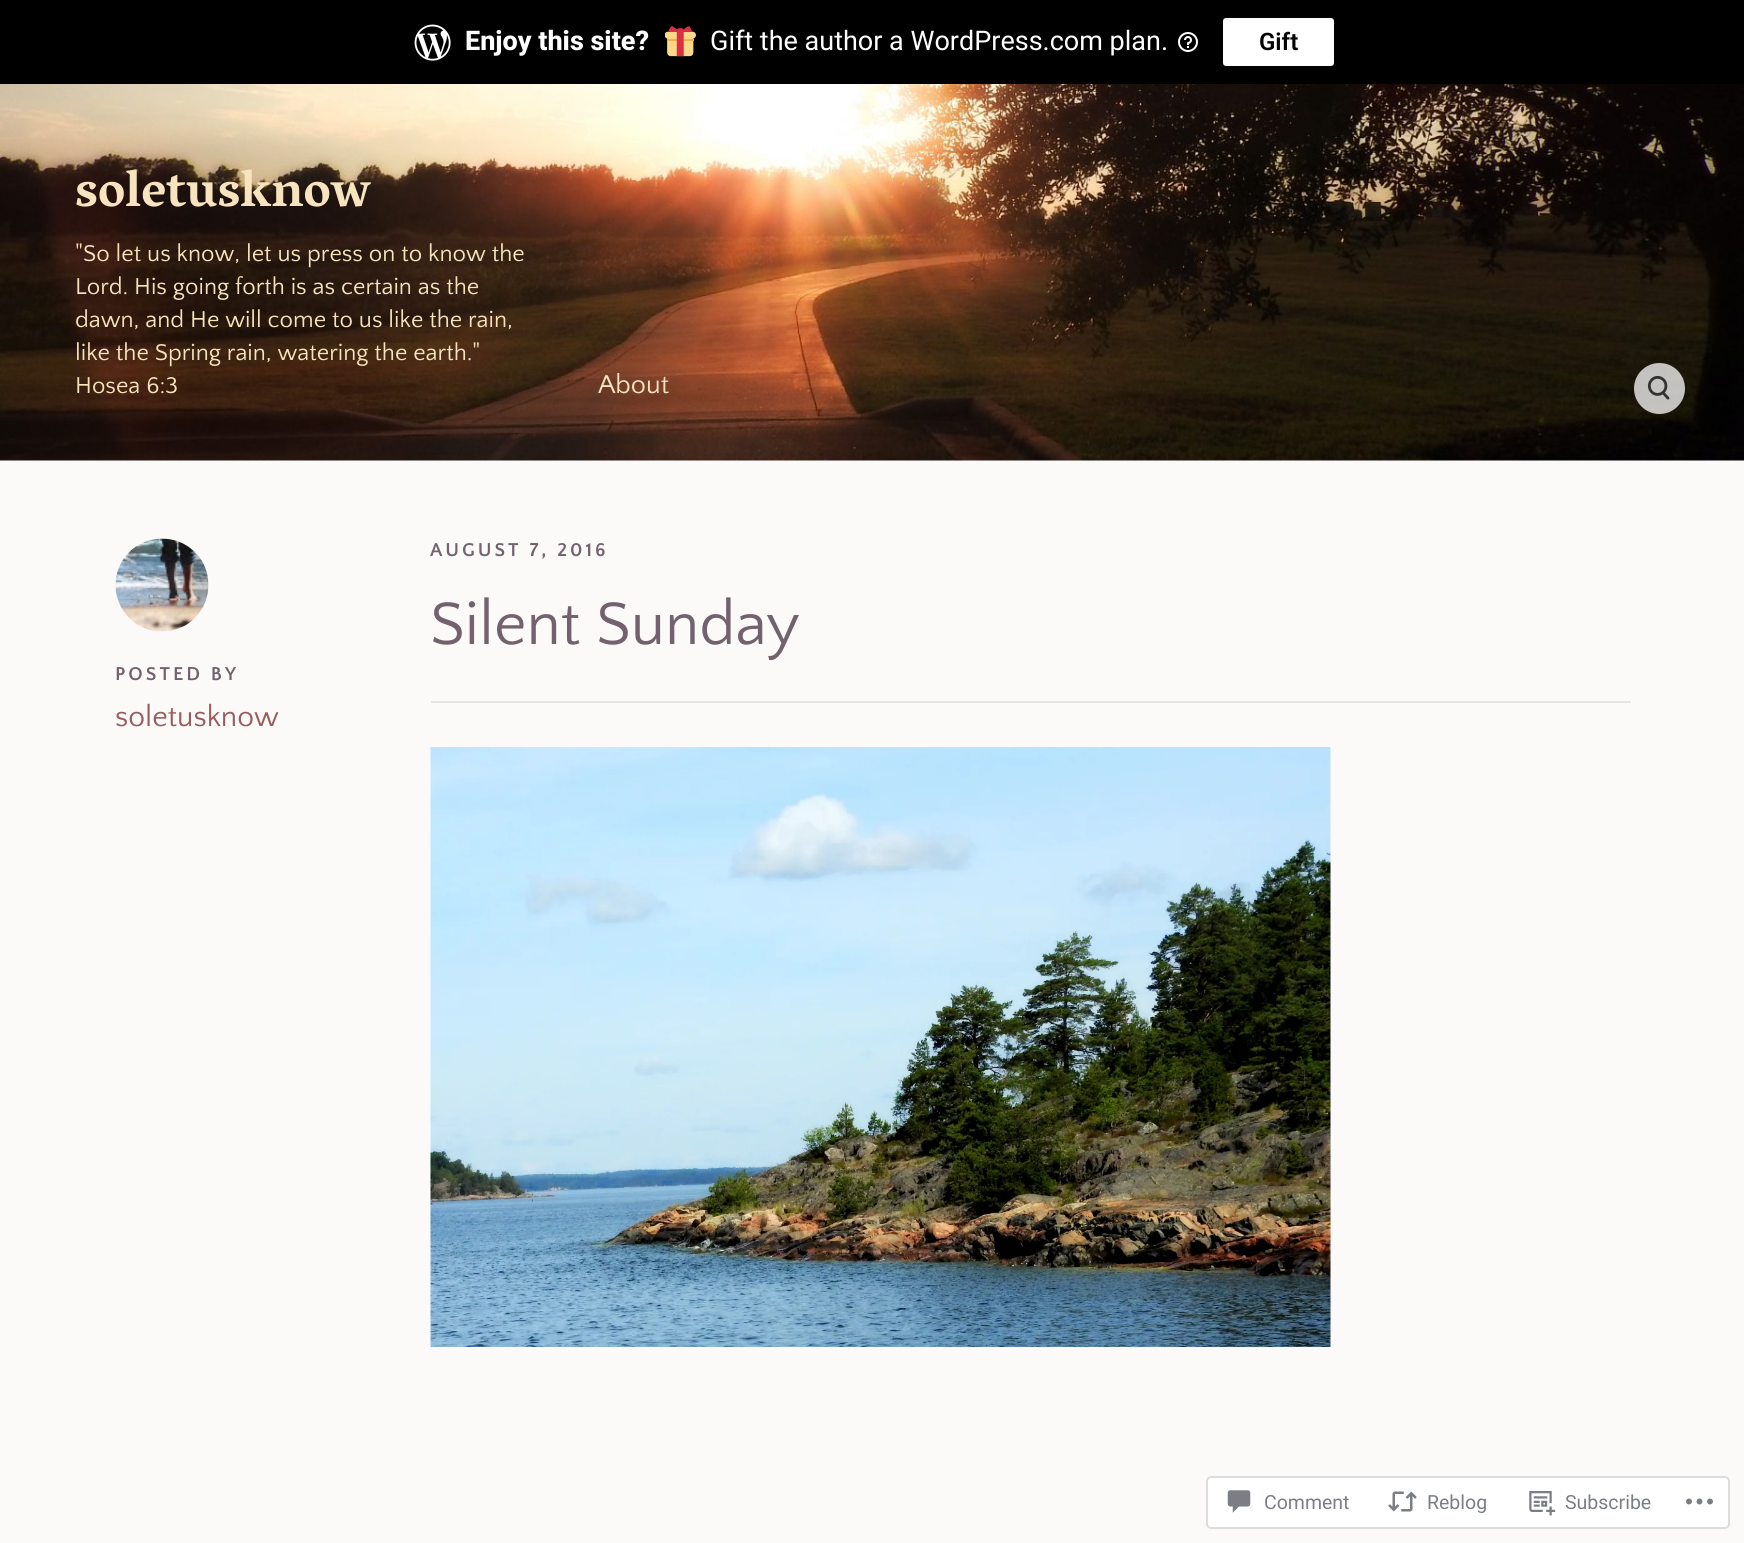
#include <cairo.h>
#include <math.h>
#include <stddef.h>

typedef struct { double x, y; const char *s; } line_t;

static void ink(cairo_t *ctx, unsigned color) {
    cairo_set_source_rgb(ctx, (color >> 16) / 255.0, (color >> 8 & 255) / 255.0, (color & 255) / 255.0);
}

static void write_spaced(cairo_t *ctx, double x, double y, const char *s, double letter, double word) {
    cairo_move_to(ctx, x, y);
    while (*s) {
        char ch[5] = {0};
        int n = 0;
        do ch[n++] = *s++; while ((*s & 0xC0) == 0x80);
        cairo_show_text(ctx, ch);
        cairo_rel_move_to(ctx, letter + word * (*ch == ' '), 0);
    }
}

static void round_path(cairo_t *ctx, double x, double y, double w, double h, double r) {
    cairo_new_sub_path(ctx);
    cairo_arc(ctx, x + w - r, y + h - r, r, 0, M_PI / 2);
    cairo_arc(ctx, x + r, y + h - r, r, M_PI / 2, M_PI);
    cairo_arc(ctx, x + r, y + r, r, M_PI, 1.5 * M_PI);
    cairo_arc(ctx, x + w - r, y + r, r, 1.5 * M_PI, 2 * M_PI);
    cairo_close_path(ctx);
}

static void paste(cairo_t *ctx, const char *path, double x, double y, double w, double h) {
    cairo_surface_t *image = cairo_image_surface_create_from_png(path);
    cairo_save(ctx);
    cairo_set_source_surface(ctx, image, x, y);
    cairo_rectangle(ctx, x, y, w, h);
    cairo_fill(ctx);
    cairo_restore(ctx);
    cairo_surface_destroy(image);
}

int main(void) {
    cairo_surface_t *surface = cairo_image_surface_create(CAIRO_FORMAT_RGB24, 1744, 1543);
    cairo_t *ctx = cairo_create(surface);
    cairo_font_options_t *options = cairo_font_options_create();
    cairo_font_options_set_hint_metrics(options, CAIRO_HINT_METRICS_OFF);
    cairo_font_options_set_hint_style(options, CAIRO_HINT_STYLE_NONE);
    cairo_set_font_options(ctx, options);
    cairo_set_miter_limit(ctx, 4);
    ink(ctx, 0xFFFFFF);
    cairo_paint(ctx);
    ink(ctx, 0x000000);
    cairo_rectangle(ctx, 0, 0, 1744, 84);
    cairo_fill(ctx);
    paste(ctx, "media/1.png", 414, 24, 37, 37);
    cairo_select_font_face(ctx, "Roboto ExtraBold", CAIRO_FONT_SLANT_NORMAL, CAIRO_FONT_WEIGHT_NORMAL);
    cairo_set_font_size(ctx, 27);
    ink(ctx, 0xFFFFFF);
    cairo_move_to(ctx, 465, 50);
    cairo_show_text(ctx, "Enjoy this site?");
    paste(ctx, "media/2.png", 665, 26, 31, 31);
    cairo_select_font_face(ctx, "Roboto", CAIRO_FONT_SLANT_NORMAL, CAIRO_FONT_WEIGHT_NORMAL);
    cairo_move_to(ctx, 710, 50);
    cairo_show_text(ctx, "Gift the author a WordPress.com plan.");
    paste(ctx, "media/3.png", 1178, 32, 20, 20);
    round_path(ctx, 1223, 18, 111, 48, 3);
    cairo_fill(ctx);
    cairo_select_font_face(ctx, "Roboto SemiBold", CAIRO_FONT_SLANT_NORMAL, CAIRO_FONT_WEIGHT_NORMAL);
    cairo_set_font_size(ctx, 24);
    ink(ctx, 0x000000);
    cairo_move_to(ctx, 1259, 50);
    cairo_show_text(ctx, "Gift");
    paste(ctx, "media/4.png", 0, 84, 1744, 377);
    cairo_select_font_face(ctx, "Vesper Libre", CAIRO_FONT_SLANT_NORMAL, CAIRO_FONT_WEIGHT_BOLD);
    cairo_set_font_size(ctx, 51);
    ink(ctx, 0xF7E4BE);
    cairo_move_to(ctx, 75, 206);
    cairo_show_text(ctx, "soletusknow");
    cairo_select_font_face(ctx, "Quattrocento Sans", CAIRO_FONT_SLANT_NORMAL, CAIRO_FONT_WEIGHT_NORMAL);
    cairo_set_font_size(ctx, 24);
    {
        static const line_t items[] = {
            {75, 261, "\"So let us know, let us press on to know the"},
            {75, 294, "Lord. His going forth is as certain as the"},
            {75, 327, "dawn, and He will come to us like the rain,"},
            {75, 360, "like the Spring rain, watering the earth.\""},
            {75, 393, "Hosea 6:3"},
        };
        for (size_t i = 0; i < sizeof items / sizeof *items; i++) {
            cairo_move_to(ctx, items[i].x, items[i].y);
            cairo_show_text(ctx, items[i].s);
        }
    }
    cairo_set_font_size(ctx, 27);
    cairo_move_to(ctx, 598, 393);
    cairo_show_text(ctx, "About");
    cairo_set_source_rgba(ctx, 1, 1, 1, 0.74);
    cairo_new_path(ctx);
    cairo_arc(ctx, 1659.5, 388.5, 25.5, 0, 2 * M_PI);
    cairo_fill(ctx);
    paste(ctx, "media/5.png", 1647, 375, 23, 25);
    ink(ctx, 0xFBFAF8);
    cairo_rectangle(ctx, 0, 461, 1744, 1082);
    cairo_fill(ctx);
    cairo_select_font_face(ctx, "Quattrocento Sans", CAIRO_FONT_SLANT_NORMAL, CAIRO_FONT_WEIGHT_BOLD);
    cairo_set_font_size(ctx, 19.5);
    ink(ctx, 0x73626E);
    write_spaced(ctx, 430, 556, "AUGUST 7, 2016", 3, 0);
    paste(ctx, "media/6.png", 115, 538, 94, 94);
    write_spaced(ctx, 115, 680, "POSTED BY", 3, 0);
    cairo_select_font_face(ctx, "Quattrocento Sans", CAIRO_FONT_SLANT_NORMAL, CAIRO_FONT_WEIGHT_NORMAL);
    cairo_set_font_size(ctx, 30);
    ink(ctx, 0x995B5D);
    cairo_move_to(ctx, 115, 726);
    cairo_show_text(ctx, "soletusknow");
    cairo_set_font_size(ctx, 63);
    ink(ctx, 0x73626E);
    cairo_move_to(ctx, 430, 644);
    cairo_show_text(ctx, "Silent Sunday");
    ink(ctx, 0xE5E5E4);
    cairo_rectangle(ctx, 431, 701, 1200, 2);
    cairo_fill(ctx);
    paste(ctx, "media/7.png", 430, 747, 901, 600);
    ink(ctx, 0xFFFFFF);
    round_path(ctx, 1207, 1477, 522, 51, 4);
    cairo_fill_preserve(ctx);
    ink(ctx, 0xDDDDDF);
    cairo_stroke(ctx);
    paste(ctx, "media/8.png", 1227, 1490, 24, 23);
    cairo_select_font_face(ctx, "Roboto", CAIRO_FONT_SLANT_NORMAL, CAIRO_FONT_WEIGHT_NORMAL);
    cairo_set_font_size(ctx, 19.5);
    ink(ctx, 0x7B7F84);
    cairo_move_to(ctx, 1264, 1509);
    cairo_show_text(ctx, "Comment");
    paste(ctx, "media/9.png", 1388, 1491, 29, 21);
    cairo_move_to(ctx, 1427, 1509);
    cairo_show_text(ctx, "Reblog");
    paste(ctx, "media/10.png", 1529, 1491, 27, 25);
    cairo_move_to(ctx, 1565, 1509);
    cairo_show_text(ctx, "Subscribe");
    paste(ctx, "media/11.png", 1686, 1498, 27, 7);
    cairo_surface_write_to_png(surface, "image.png");
    cairo_font_options_destroy(options);
    cairo_destroy(ctx);
    cairo_surface_destroy(surface);
    return 0;
}
